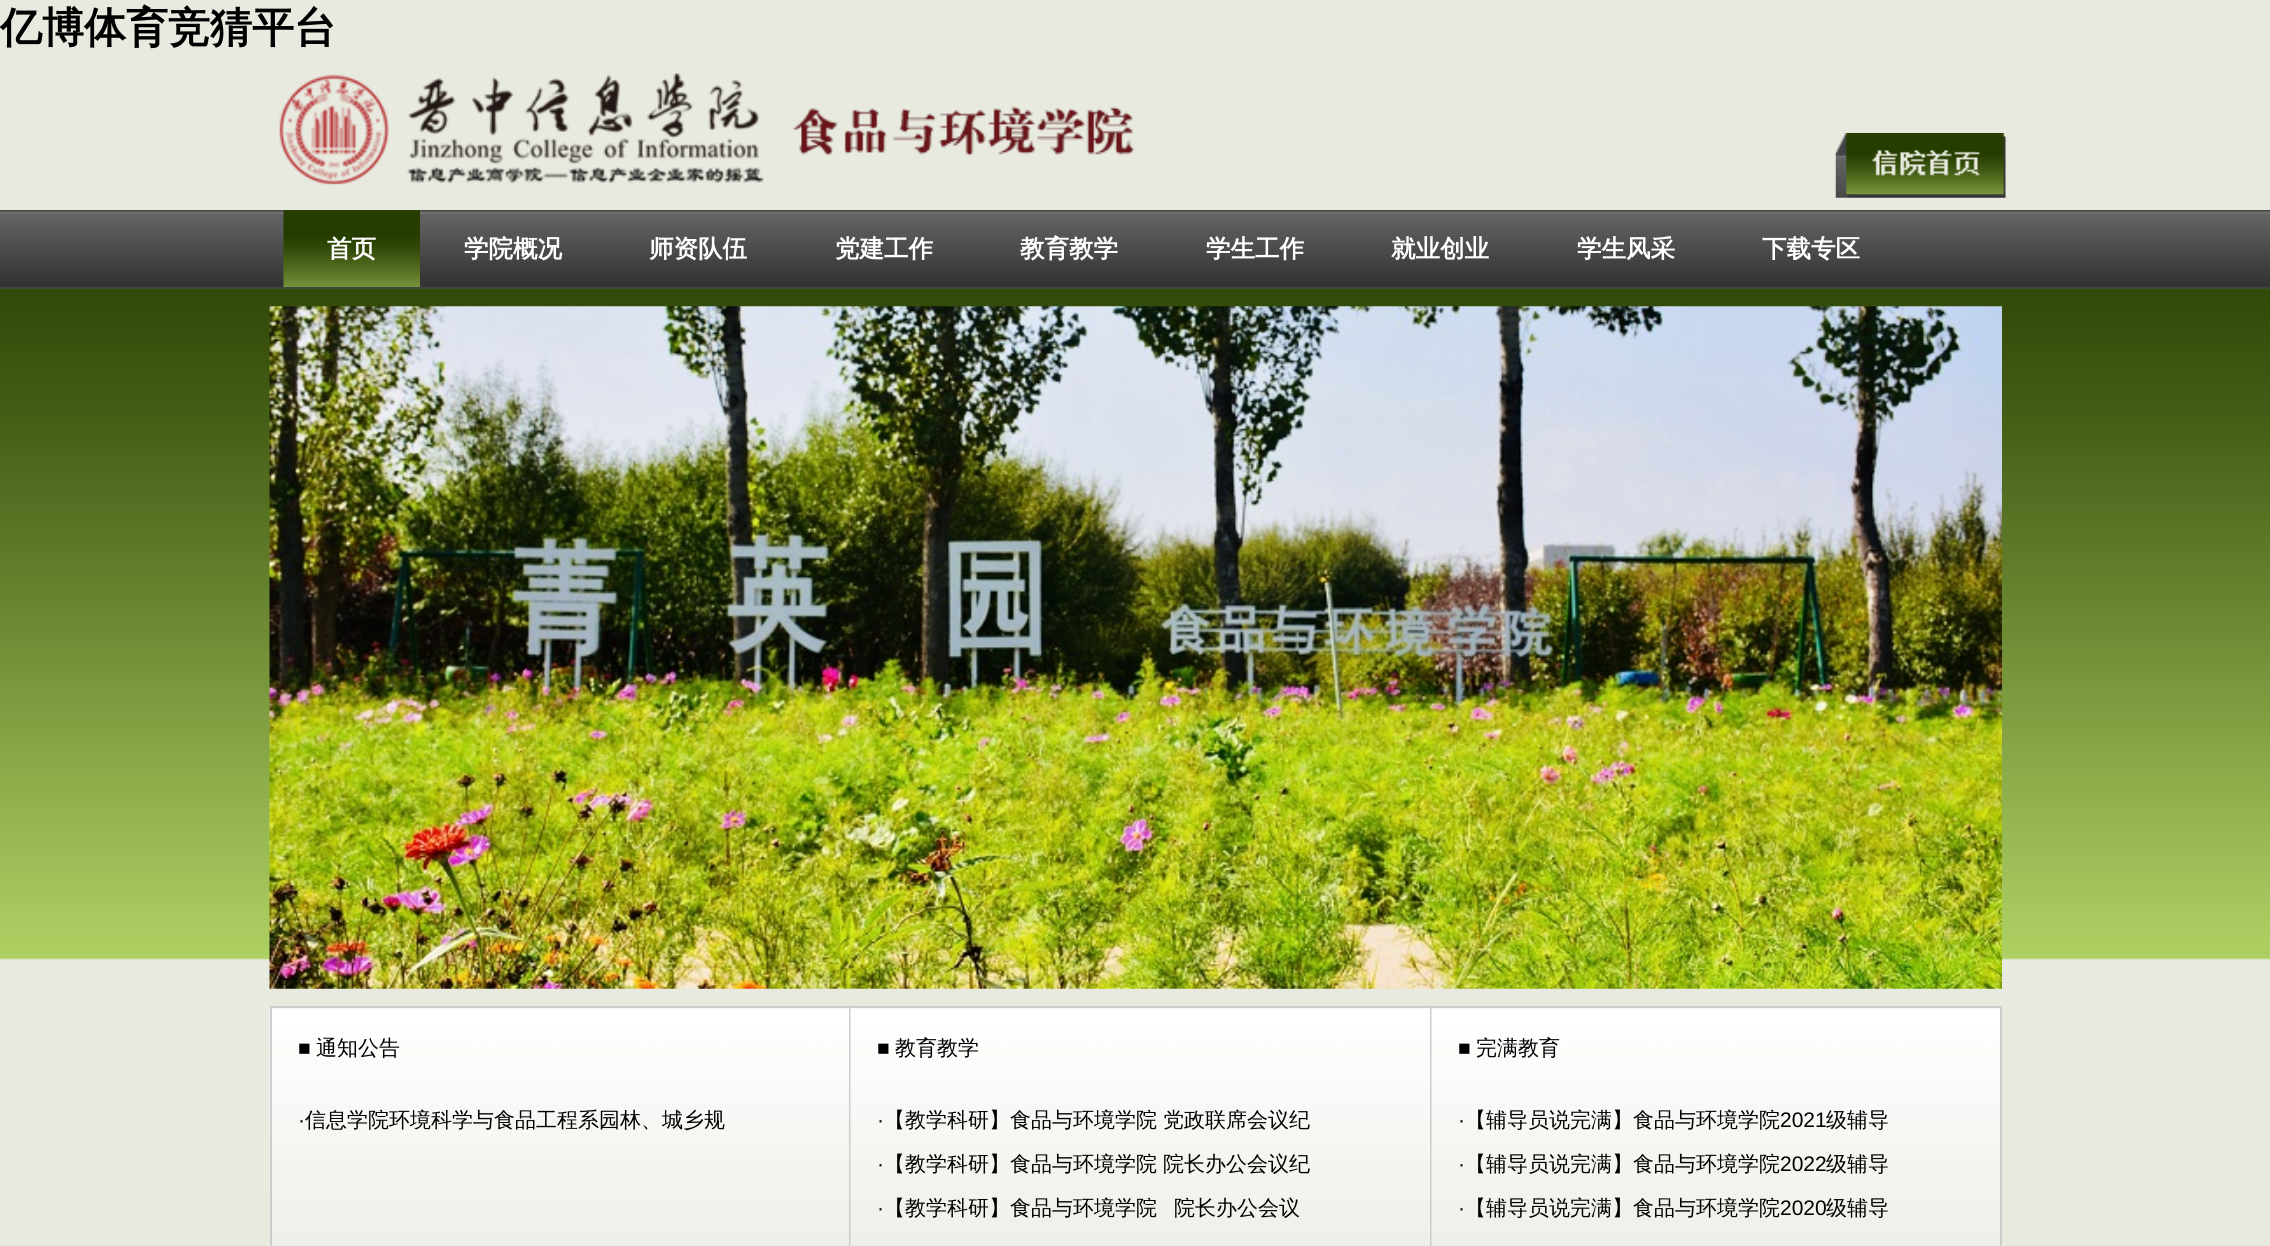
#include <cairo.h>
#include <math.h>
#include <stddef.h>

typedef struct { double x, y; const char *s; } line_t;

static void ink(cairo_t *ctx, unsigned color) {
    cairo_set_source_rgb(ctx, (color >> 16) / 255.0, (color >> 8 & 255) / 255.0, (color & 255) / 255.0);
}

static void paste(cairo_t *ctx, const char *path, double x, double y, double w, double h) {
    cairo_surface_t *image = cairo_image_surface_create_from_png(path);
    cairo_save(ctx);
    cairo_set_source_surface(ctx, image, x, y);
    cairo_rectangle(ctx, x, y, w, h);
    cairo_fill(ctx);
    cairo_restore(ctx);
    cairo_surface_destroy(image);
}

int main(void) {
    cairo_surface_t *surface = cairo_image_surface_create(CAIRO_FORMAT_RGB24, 2270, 1246);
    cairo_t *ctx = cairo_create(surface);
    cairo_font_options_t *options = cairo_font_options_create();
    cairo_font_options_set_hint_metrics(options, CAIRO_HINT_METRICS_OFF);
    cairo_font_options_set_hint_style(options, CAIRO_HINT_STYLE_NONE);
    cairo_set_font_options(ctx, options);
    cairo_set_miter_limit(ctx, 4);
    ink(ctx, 0xE8EADF);
    cairo_paint(ctx);
    paste(ctx, "media/1.png", 0, 288, 2270, 672);
    cairo_select_font_face(ctx, "WenQuanYi Zen Hei", CAIRO_FONT_SLANT_NORMAL, CAIRO_FONT_WEIGHT_BOLD);
    cairo_set_font_size(ctx, 42);
    ink(ctx, 0x000000);
    cairo_move_to(ctx, 0, 42);
    cairo_show_text(ctx, "亿博体育竞猜平台");
    paste(ctx, "media/2.png", 279, 73, 856, 112);
    paste(ctx, "media/3.png", 1835, 133, 171, 65);
    paste(ctx, "media/4.png", 0, 210, 2270, 79);
    paste(ctx, "media/5.png", 283, 210, 137, 77);
    cairo_set_font_size(ctx, 24.5);
    ink(ctx, 0xFFFFFF);
    {
        static const line_t items[] = {
            {327, 257, "首页"},
            {464, 257, "学院概况"},
            {649, 257, "师资队伍"},
            {835, 257, "党建工作"},
            {1020, 257, "教育教学"},
            {1206, 257, "学生工作"},
            {1391, 257, "就业创业"},
            {1577, 257, "学生风采"},
            {1762, 257, "下载专区"},
        };
        for (size_t i = 0; i < sizeof items / sizeof *items; i++) {
            cairo_move_to(ctx, items[i].x, items[i].y);
            cairo_show_text(ctx, items[i].s);
        }
    }
    paste(ctx, "media/6.png", 269, 306, 1733, 683);
    paste(ctx, "media/7.png", 269, 1006, 580, 240);
    cairo_rectangle(ctx, 271, 1007, 579, 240);
    ink(ctx, 0xCCCCCC);
    cairo_stroke(ctx);
    cairo_select_font_face(ctx, "Liberation Sans", CAIRO_FONT_SLANT_NORMAL, CAIRO_FONT_WEIGHT_NORMAL);
    cairo_set_font_size(ctx, 21);
    ink(ctx, 0x000000);
    cairo_move_to(ctx, 298, 1055);
    cairo_show_text(ctx, "■");
    cairo_select_font_face(ctx, "WenQuanYi Zen Hei Medium", CAIRO_FONT_SLANT_NORMAL, CAIRO_FONT_WEIGHT_NORMAL);
    cairo_move_to(ctx, 316, 1055);
    cairo_show_text(ctx, "通知公告");
    cairo_select_font_face(ctx, "Liberation Sans", CAIRO_FONT_SLANT_NORMAL, CAIRO_FONT_WEIGHT_NORMAL);
    cairo_move_to(ctx, 298, 1127);
    cairo_show_text(ctx, "·");
    cairo_select_font_face(ctx, "WenQuanYi Zen Hei Medium", CAIRO_FONT_SLANT_NORMAL, CAIRO_FONT_WEIGHT_NORMAL);
    cairo_move_to(ctx, 305, 1127);
    cairo_show_text(ctx, "信息学院环境科学与食品工程系园林、城乡规");
    paste(ctx, "media/8.png", 850, 1006, 580, 240);
    ink(ctx, 0xCCCCCC);
    cairo_rectangle(ctx, 851, 1006, 581, 2);
    cairo_fill(ctx);
    cairo_rectangle(ctx, 1430, 1006, 2, 240);
    cairo_fill(ctx);
    cairo_select_font_face(ctx, "Liberation Sans", CAIRO_FONT_SLANT_NORMAL, CAIRO_FONT_WEIGHT_NORMAL);
    ink(ctx, 0x000000);
    cairo_move_to(ctx, 877, 1055);
    cairo_show_text(ctx, "■");
    cairo_select_font_face(ctx, "WenQuanYi Zen Hei Medium", CAIRO_FONT_SLANT_NORMAL, CAIRO_FONT_WEIGHT_NORMAL);
    cairo_move_to(ctx, 895, 1055);
    cairo_show_text(ctx, "教育教学");
    cairo_select_font_face(ctx, "Liberation Sans", CAIRO_FONT_SLANT_NORMAL, CAIRO_FONT_WEIGHT_NORMAL);
    cairo_move_to(ctx, 877, 1127);
    cairo_show_text(ctx, "·");
    cairo_select_font_face(ctx, "WenQuanYi Zen Hei Medium", CAIRO_FONT_SLANT_NORMAL, CAIRO_FONT_WEIGHT_NORMAL);
    cairo_move_to(ctx, 884, 1127);
    cairo_show_text(ctx, "【教学科研】食品与环境学院");
    cairo_move_to(ctx, 1163, 1127);
    cairo_show_text(ctx, "党政联席会议纪");
    cairo_select_font_face(ctx, "Liberation Sans", CAIRO_FONT_SLANT_NORMAL, CAIRO_FONT_WEIGHT_NORMAL);
    cairo_move_to(ctx, 877, 1171);
    cairo_show_text(ctx, "·");
    cairo_select_font_face(ctx, "WenQuanYi Zen Hei Medium", CAIRO_FONT_SLANT_NORMAL, CAIRO_FONT_WEIGHT_NORMAL);
    cairo_move_to(ctx, 884, 1171);
    cairo_show_text(ctx, "【教学科研】食品与环境学院");
    cairo_move_to(ctx, 1163, 1171);
    cairo_show_text(ctx, "院长办公会议纪");
    cairo_select_font_face(ctx, "Liberation Sans", CAIRO_FONT_SLANT_NORMAL, CAIRO_FONT_WEIGHT_NORMAL);
    cairo_move_to(ctx, 877, 1215);
    cairo_show_text(ctx, "·");
    cairo_select_font_face(ctx, "WenQuanYi Zen Hei Medium", CAIRO_FONT_SLANT_NORMAL, CAIRO_FONT_WEIGHT_NORMAL);
    cairo_move_to(ctx, 884, 1215);
    cairo_show_text(ctx, "【教学科研】食品与环境学院");
    cairo_move_to(ctx, 1174, 1215);
    cairo_show_text(ctx, "院长办公会议");
    paste(ctx, "media/9.png", 1431, 1006, 569, 240);
    ink(ctx, 0xCCCCCC);
    cairo_rectangle(ctx, 1432, 1006, 570, 2);
    cairo_fill(ctx);
    cairo_rectangle(ctx, 2000, 1006, 2, 240);
    cairo_fill(ctx);
    cairo_select_font_face(ctx, "Liberation Sans", CAIRO_FONT_SLANT_NORMAL, CAIRO_FONT_WEIGHT_NORMAL);
    ink(ctx, 0x000000);
    cairo_move_to(ctx, 1458, 1055);
    cairo_show_text(ctx, "■");
    cairo_select_font_face(ctx, "WenQuanYi Zen Hei Medium", CAIRO_FONT_SLANT_NORMAL, CAIRO_FONT_WEIGHT_NORMAL);
    cairo_move_to(ctx, 1476, 1055);
    cairo_show_text(ctx, "完满教育");
    cairo_select_font_face(ctx, "Liberation Sans", CAIRO_FONT_SLANT_NORMAL, CAIRO_FONT_WEIGHT_NORMAL);
    cairo_move_to(ctx, 1458, 1127);
    cairo_show_text(ctx, "·");
    cairo_select_font_face(ctx, "WenQuanYi Zen Hei Medium", CAIRO_FONT_SLANT_NORMAL, CAIRO_FONT_WEIGHT_NORMAL);
    cairo_move_to(ctx, 1465, 1127);
    cairo_show_text(ctx, "【辅导员说完满】食品与环境学院");
    cairo_select_font_face(ctx, "Liberation Sans", CAIRO_FONT_SLANT_NORMAL, CAIRO_FONT_WEIGHT_NORMAL);
    cairo_move_to(ctx, 1780, 1127);
    cairo_show_text(ctx, "2021");
    cairo_select_font_face(ctx, "WenQuanYi Zen Hei Medium", CAIRO_FONT_SLANT_NORMAL, CAIRO_FONT_WEIGHT_NORMAL);
    cairo_move_to(ctx, 1826, 1127);
    cairo_show_text(ctx, "级辅导");
    cairo_select_font_face(ctx, "Liberation Sans", CAIRO_FONT_SLANT_NORMAL, CAIRO_FONT_WEIGHT_NORMAL);
    cairo_move_to(ctx, 1458, 1171);
    cairo_show_text(ctx, "·");
    cairo_select_font_face(ctx, "WenQuanYi Zen Hei Medium", CAIRO_FONT_SLANT_NORMAL, CAIRO_FONT_WEIGHT_NORMAL);
    cairo_move_to(ctx, 1465, 1171);
    cairo_show_text(ctx, "【辅导员说完满】食品与环境学院");
    cairo_select_font_face(ctx, "Liberation Sans", CAIRO_FONT_SLANT_NORMAL, CAIRO_FONT_WEIGHT_NORMAL);
    cairo_move_to(ctx, 1780, 1171);
    cairo_show_text(ctx, "2022");
    cairo_select_font_face(ctx, "WenQuanYi Zen Hei Medium", CAIRO_FONT_SLANT_NORMAL, CAIRO_FONT_WEIGHT_NORMAL);
    cairo_move_to(ctx, 1826, 1171);
    cairo_show_text(ctx, "级辅导");
    cairo_select_font_face(ctx, "Liberation Sans", CAIRO_FONT_SLANT_NORMAL, CAIRO_FONT_WEIGHT_NORMAL);
    cairo_move_to(ctx, 1458, 1215);
    cairo_show_text(ctx, "·");
    cairo_select_font_face(ctx, "WenQuanYi Zen Hei Medium", CAIRO_FONT_SLANT_NORMAL, CAIRO_FONT_WEIGHT_NORMAL);
    cairo_move_to(ctx, 1465, 1215);
    cairo_show_text(ctx, "【辅导员说完满】食品与环境学院");
    cairo_select_font_face(ctx, "Liberation Sans", CAIRO_FONT_SLANT_NORMAL, CAIRO_FONT_WEIGHT_NORMAL);
    cairo_move_to(ctx, 1780, 1215);
    cairo_show_text(ctx, "2020");
    cairo_select_font_face(ctx, "WenQuanYi Zen Hei Medium", CAIRO_FONT_SLANT_NORMAL, CAIRO_FONT_WEIGHT_NORMAL);
    cairo_move_to(ctx, 1826, 1215);
    cairo_show_text(ctx, "级辅导");
    cairo_surface_write_to_png(surface, "image.png");
    cairo_font_options_destroy(options);
    cairo_destroy(ctx);
    cairo_surface_destroy(surface);
    return 0;
}
